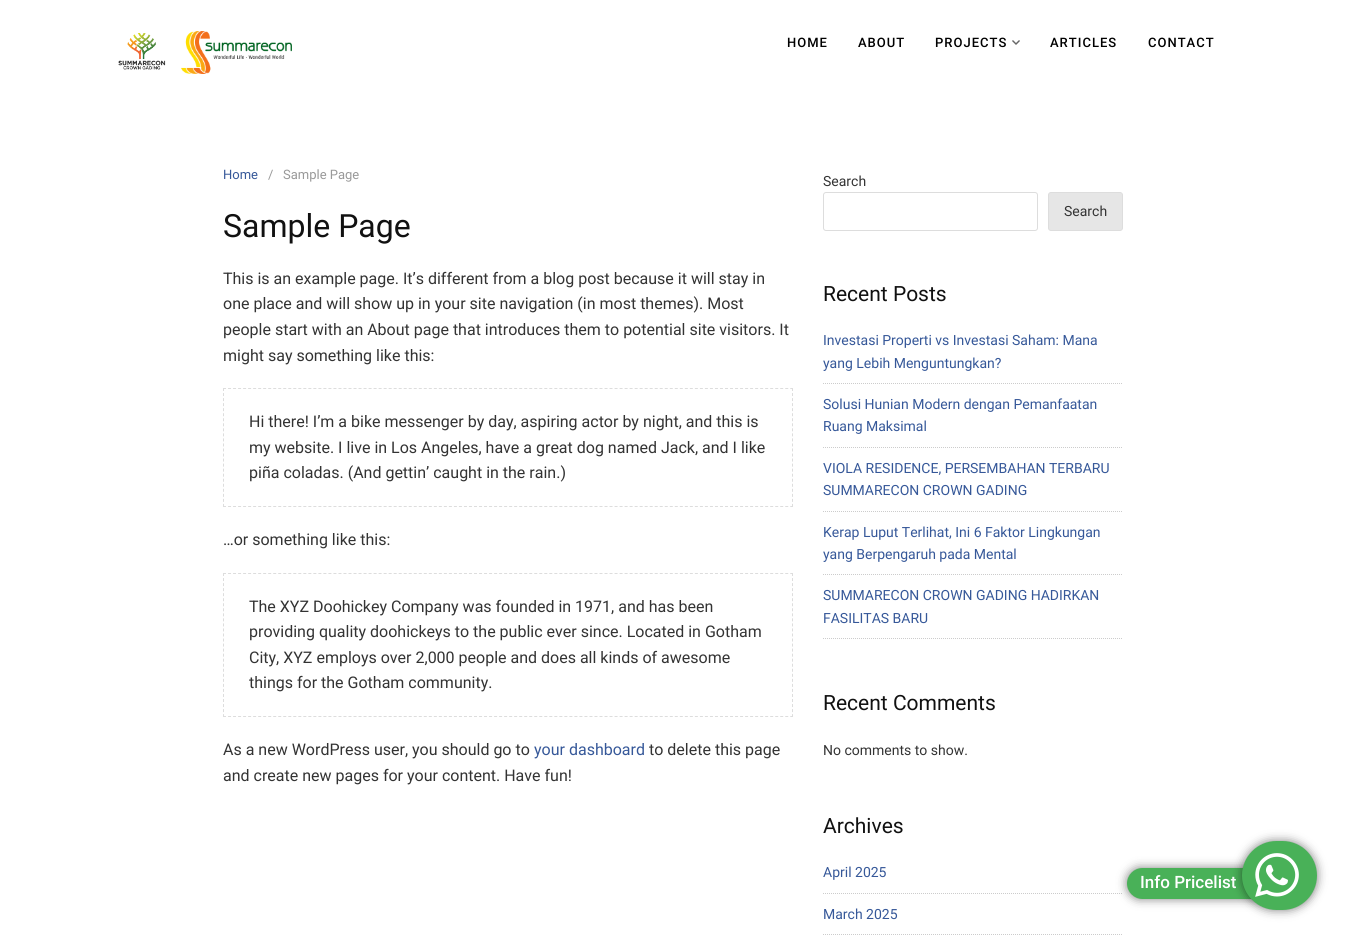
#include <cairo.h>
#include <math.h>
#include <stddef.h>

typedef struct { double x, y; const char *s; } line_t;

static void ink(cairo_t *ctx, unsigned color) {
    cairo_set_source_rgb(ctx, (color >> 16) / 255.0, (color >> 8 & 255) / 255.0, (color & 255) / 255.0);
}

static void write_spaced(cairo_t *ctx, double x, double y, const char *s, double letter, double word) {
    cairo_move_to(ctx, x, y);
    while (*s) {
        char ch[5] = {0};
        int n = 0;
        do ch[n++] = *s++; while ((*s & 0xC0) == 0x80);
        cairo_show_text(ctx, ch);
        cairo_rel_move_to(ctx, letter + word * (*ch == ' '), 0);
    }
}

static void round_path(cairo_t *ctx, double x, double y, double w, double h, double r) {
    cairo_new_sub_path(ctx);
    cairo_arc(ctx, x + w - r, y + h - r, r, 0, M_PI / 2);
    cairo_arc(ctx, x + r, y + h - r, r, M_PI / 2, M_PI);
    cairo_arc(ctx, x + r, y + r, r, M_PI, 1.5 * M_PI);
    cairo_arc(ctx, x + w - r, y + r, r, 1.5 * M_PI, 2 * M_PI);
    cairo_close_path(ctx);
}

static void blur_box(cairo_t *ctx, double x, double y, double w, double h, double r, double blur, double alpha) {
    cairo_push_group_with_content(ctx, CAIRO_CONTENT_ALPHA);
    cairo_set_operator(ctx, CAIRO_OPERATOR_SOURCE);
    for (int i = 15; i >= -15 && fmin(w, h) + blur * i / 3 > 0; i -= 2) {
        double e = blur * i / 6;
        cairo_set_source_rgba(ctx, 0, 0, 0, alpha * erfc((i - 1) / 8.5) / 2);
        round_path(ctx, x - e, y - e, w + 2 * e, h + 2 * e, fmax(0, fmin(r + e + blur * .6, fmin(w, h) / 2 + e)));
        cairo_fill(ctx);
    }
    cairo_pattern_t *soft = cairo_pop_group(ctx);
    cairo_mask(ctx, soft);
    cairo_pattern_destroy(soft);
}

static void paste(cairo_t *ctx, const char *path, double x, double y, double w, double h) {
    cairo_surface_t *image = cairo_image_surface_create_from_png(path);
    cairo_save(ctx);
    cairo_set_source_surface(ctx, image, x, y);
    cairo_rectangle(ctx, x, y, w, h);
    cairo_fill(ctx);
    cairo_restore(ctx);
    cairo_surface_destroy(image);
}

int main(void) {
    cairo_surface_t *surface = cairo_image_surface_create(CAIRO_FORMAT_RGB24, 1346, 942);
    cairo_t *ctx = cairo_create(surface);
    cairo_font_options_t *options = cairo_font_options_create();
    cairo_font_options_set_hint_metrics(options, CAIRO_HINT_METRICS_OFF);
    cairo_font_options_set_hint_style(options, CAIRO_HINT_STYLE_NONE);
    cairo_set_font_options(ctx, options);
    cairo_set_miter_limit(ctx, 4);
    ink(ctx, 0xFFFFFF);
    cairo_paint(ctx);
    paste(ctx, "media/1.png", 118, 33, 48, 37);
    paste(ctx, "media/2.png", 181, 31, 111, 43);
    cairo_select_font_face(ctx, "Roboto Medium", CAIRO_FONT_SLANT_NORMAL, CAIRO_FONT_WEIGHT_NORMAL);
    cairo_set_font_size(ctx, 13);
    ink(ctx, 0x000000);
    {
        static const line_t items[] = {
            {787, 47, "HOME"},
            {858, 47, "ABOUT"},
            {935, 47, "PROJECTS"},
        };
        for (size_t i = 0; i < sizeof items / sizeof *items; i++) {
            write_spaced(ctx, items[i].x, items[i].y, items[i].s, 1, 0);
        }
    }
    paste(ctx, "media/3.png", 1012, 40, 8, 5);
    write_spaced(ctx, 1050, 47, "ARTICLES", 1, 0);
    write_spaced(ctx, 1148, 47, "CONTACT", 1, 0);
    cairo_new_path(ctx);
    cairo_move_to(ctx, 823, 893.5);
    cairo_line_to(ctx, 1123, 893.5);
    ink(ctx, 0xCCCCCC);
    cairo_set_line_width(ctx, 1);
    cairo_set_dash(ctx, (double[]){1, 1}, 2, 0);
    cairo_stroke(ctx);
    ink(ctx, 0x000000);
    blur_box(ctx, 1127, 868, 180, 31, 15.5, 5, 0.5);
    ink(ctx, 0x49B158);
    round_path(ctx, 1127, 868, 180, 31, 15.5);
    cairo_fill(ctx);
    cairo_set_font_size(ctx, 17);
    ink(ctx, 0xFFFFFF);
    cairo_move_to(ctx, 1140, 888);
    cairo_show_text(ctx, "Info Pricelist");
    ink(ctx, 0x000000);
    blur_box(ctx, 1242, 841, 75, 69, 34.5, 5, 0.5);
    ink(ctx, 0x49B158);
    round_path(ctx, 1242, 841, 75, 69, 34.5);
    cairo_fill(ctx);
    paste(ctx, "media/4.png", 1255, 853, 44, 44);
    cairo_select_font_face(ctx, "Roboto", CAIRO_FONT_SLANT_NORMAL, CAIRO_FONT_WEIGHT_NORMAL);
    cairo_set_font_size(ctx, 13);
    ink(ctx, 0x365899);
    cairo_move_to(ctx, 223, 179);
    cairo_show_text(ctx, "Home");
    ink(ctx, 0x999999);
    cairo_move_to(ctx, 268, 179);
    cairo_show_text(ctx, "/");
    cairo_move_to(ctx, 283, 179);
    cairo_show_text(ctx, "Sample Page");
    cairo_set_font_size(ctx, 32);
    ink(ctx, 0x111111);
    cairo_move_to(ctx, 223, 237);
    cairo_show_text(ctx, "Sample Page");
    cairo_set_font_size(ctx, 16);
    ink(ctx, 0x333333);
    {
        static const line_t items[] = {
            {223, 284, "This is an example page. It’s different from a blog post because it will stay in"},
            {223, 309, "one place and will show up in your site navigation (in most themes). Most"},
            {223, 335, "people start with an About page that introduces them to potential site visitors. It"},
            {223, 361, "might say something like this:"},
        };
        for (size_t i = 0; i < sizeof items / sizeof *items; i++) {
            cairo_move_to(ctx, items[i].x, items[i].y);
            cairo_show_text(ctx, items[i].s);
        }
    }
    cairo_new_path(ctx);
    cairo_move_to(ctx, 223, 388.5);
    cairo_line_to(ctx, 793, 388.5);
    ink(ctx, 0xDDDDDD);
    cairo_set_dash(ctx, (double[]){3, 2.02}, 2, 0);
    cairo_stroke(ctx);
    cairo_new_path(ctx);
    cairo_move_to(ctx, 792.5, 388);
    cairo_line_to(ctx, 792.5, 507);
    cairo_set_dash(ctx, (double[]){3, 2.04}, 2, 0);
    cairo_stroke(ctx);
    cairo_new_path(ctx);
    cairo_move_to(ctx, 223, 506.5);
    cairo_line_to(ctx, 793, 506.5);
    cairo_set_dash(ctx, (double[]){3, 2.02}, 2, 0);
    cairo_stroke(ctx);
    cairo_new_path(ctx);
    cairo_move_to(ctx, 223.5, 388);
    cairo_line_to(ctx, 223.5, 507);
    cairo_set_dash(ctx, (double[]){3, 2.04}, 2, 0);
    cairo_stroke(ctx);
    ink(ctx, 0x333333);
    {
        static const line_t items[] = {
            {249, 427, "Hi there! I’m a bike messenger by day, aspiring actor by night, and this is"},
            {249, 453, "my website. I live in Los Angeles, have a great dog named Jack, and I like"},
            {249, 478, "piña coladas. (And gettin’ caught in the rain.)"},
            {223, 545, "…or something like this:"},
        };
        for (size_t i = 0; i < sizeof items / sizeof *items; i++) {
            cairo_move_to(ctx, items[i].x, items[i].y);
            cairo_show_text(ctx, items[i].s);
        }
    }
    cairo_new_path(ctx);
    cairo_move_to(ctx, 223, 573.5);
    cairo_line_to(ctx, 793, 573.5);
    ink(ctx, 0xDDDDDD);
    cairo_set_dash(ctx, (double[]){3, 2.02}, 2, 0);
    cairo_stroke(ctx);
    cairo_new_path(ctx);
    cairo_move_to(ctx, 792.5, 573);
    cairo_line_to(ctx, 792.5, 717);
    cairo_set_dash(ctx, (double[]){3, 2.04}, 2, 0);
    cairo_stroke(ctx);
    cairo_new_path(ctx);
    cairo_move_to(ctx, 223, 716.5);
    cairo_line_to(ctx, 793, 716.5);
    cairo_set_dash(ctx, (double[]){3, 2.02}, 2, 0);
    cairo_stroke(ctx);
    cairo_new_path(ctx);
    cairo_move_to(ctx, 223.5, 573);
    cairo_line_to(ctx, 223.5, 717);
    cairo_set_dash(ctx, (double[]){3, 2.04}, 2, 0);
    cairo_stroke(ctx);
    ink(ctx, 0x333333);
    {
        static const line_t items[] = {
            {249, 612, "The XYZ Doohickey Company was founded in 1971, and has been"},
            {249, 637, "providing quality doohickeys to the public ever since. Located in Gotham"},
            {249, 663, "City, XYZ employs over 2,000 people and does all kinds of awesome"},
            {249, 688, "things for the Gotham community."},
            {223, 755, "As a new WordPress user, you should go to"},
        };
        for (size_t i = 0; i < sizeof items / sizeof *items; i++) {
            cairo_move_to(ctx, items[i].x, items[i].y);
            cairo_show_text(ctx, items[i].s);
        }
    }
    ink(ctx, 0x365899);
    cairo_move_to(ctx, 534, 755);
    cairo_show_text(ctx, "your dashboard");
    ink(ctx, 0x333333);
    cairo_move_to(ctx, 649, 755);
    cairo_show_text(ctx, "to delete this page");
    cairo_move_to(ctx, 223, 781);
    cairo_show_text(ctx, "and create new pages for your content. Have fun!");
    cairo_set_font_size(ctx, 14);
    cairo_move_to(ctx, 823, 186);
    cairo_show_text(ctx, "Search");
    round_path(ctx, 823.5, 192.5, 214, 38, 2.5);
    ink(ctx, 0xDDDDDD);
    cairo_set_dash(ctx, NULL, 0, 0);
    cairo_stroke(ctx);
    ink(ctx, 0xE6E6E6);
    round_path(ctx, 1048.5, 192.5, 74, 38, 2.5);
    cairo_fill_preserve(ctx);
    ink(ctx, 0xDDDDDD);
    cairo_stroke(ctx);
    ink(ctx, 0x333333);
    cairo_move_to(ctx, 1064, 216);
    cairo_show_text(ctx, "Search");
    cairo_set_font_size(ctx, 21);
    ink(ctx, 0x111111);
    cairo_move_to(ctx, 823, 301);
    cairo_show_text(ctx, "Recent Posts");
    cairo_new_path(ctx);
    cairo_move_to(ctx, 823, 383.5);
    cairo_line_to(ctx, 1123, 383.5);
    ink(ctx, 0xCCCCCC);
    cairo_set_dash(ctx, (double[]){1, 1}, 2, 0);
    cairo_stroke(ctx);
    cairo_set_font_size(ctx, 14);
    ink(ctx, 0x365899);
    cairo_move_to(ctx, 823, 345);
    cairo_show_text(ctx, "Investasi Properti vs Investasi Saham: Mana");
    cairo_move_to(ctx, 823, 368);
    cairo_show_text(ctx, "yang Lebih Menguntungkan?");
    cairo_new_path(ctx);
    cairo_move_to(ctx, 823, 447.5);
    cairo_line_to(ctx, 1123, 447.5);
    ink(ctx, 0xCCCCCC);
    cairo_stroke(ctx);
    ink(ctx, 0x365899);
    cairo_move_to(ctx, 823, 409);
    cairo_show_text(ctx, "Solusi Hunian Modern dengan Pemanfaatan");
    cairo_move_to(ctx, 823, 431);
    cairo_show_text(ctx, "Ruang Maksimal");
    cairo_new_path(ctx);
    cairo_move_to(ctx, 823, 511.5);
    cairo_line_to(ctx, 1123, 511.5);
    ink(ctx, 0xCCCCCC);
    cairo_stroke(ctx);
    ink(ctx, 0x365899);
    cairo_move_to(ctx, 823, 473);
    cairo_show_text(ctx, "VIOLA RESIDENCE, PERSEMBAHAN TERBARU");
    cairo_move_to(ctx, 823, 495);
    cairo_show_text(ctx, "SUMMARECON CROWN GADING");
    cairo_new_path(ctx);
    cairo_move_to(ctx, 823, 574.5);
    cairo_line_to(ctx, 1123, 574.5);
    ink(ctx, 0xCCCCCC);
    cairo_stroke(ctx);
    ink(ctx, 0x365899);
    cairo_move_to(ctx, 823, 537);
    cairo_show_text(ctx, "Kerap Luput Terlihat, Ini 6 Faktor Lingkungan");
    cairo_move_to(ctx, 823, 559);
    cairo_show_text(ctx, "yang Berpengaruh pada Mental");
    cairo_new_path(ctx);
    cairo_move_to(ctx, 823, 638.5);
    cairo_line_to(ctx, 1123, 638.5);
    ink(ctx, 0xCCCCCC);
    cairo_stroke(ctx);
    ink(ctx, 0x365899);
    cairo_move_to(ctx, 823, 600);
    cairo_show_text(ctx, "SUMMARECON CROWN GADING HADIRKAN");
    cairo_move_to(ctx, 823, 623);
    cairo_show_text(ctx, "FASILITAS BARU");
    cairo_set_font_size(ctx, 21);
    ink(ctx, 0x111111);
    cairo_move_to(ctx, 823, 710);
    cairo_show_text(ctx, "Recent Comments");
    cairo_set_font_size(ctx, 14);
    ink(ctx, 0x333333);
    cairo_move_to(ctx, 823, 755);
    cairo_show_text(ctx, "No comments to show.");
    cairo_set_font_size(ctx, 21);
    ink(ctx, 0x111111);
    cairo_move_to(ctx, 823, 833);
    cairo_show_text(ctx, "Archives");
    cairo_set_font_size(ctx, 14);
    ink(ctx, 0x365899);
    cairo_move_to(ctx, 823, 877);
    cairo_show_text(ctx, "April 2025");
    cairo_new_path(ctx);
    cairo_move_to(ctx, 823, 934.5);
    cairo_line_to(ctx, 1123, 934.5);
    ink(ctx, 0xCCCCCC);
    cairo_stroke(ctx);
    ink(ctx, 0x365899);
    cairo_move_to(ctx, 823, 919);
    cairo_show_text(ctx, "March 2025");
    cairo_surface_write_to_png(surface, "image.png");
    cairo_font_options_destroy(options);
    cairo_destroy(ctx);
    cairo_surface_destroy(surface);
    return 0;
}
